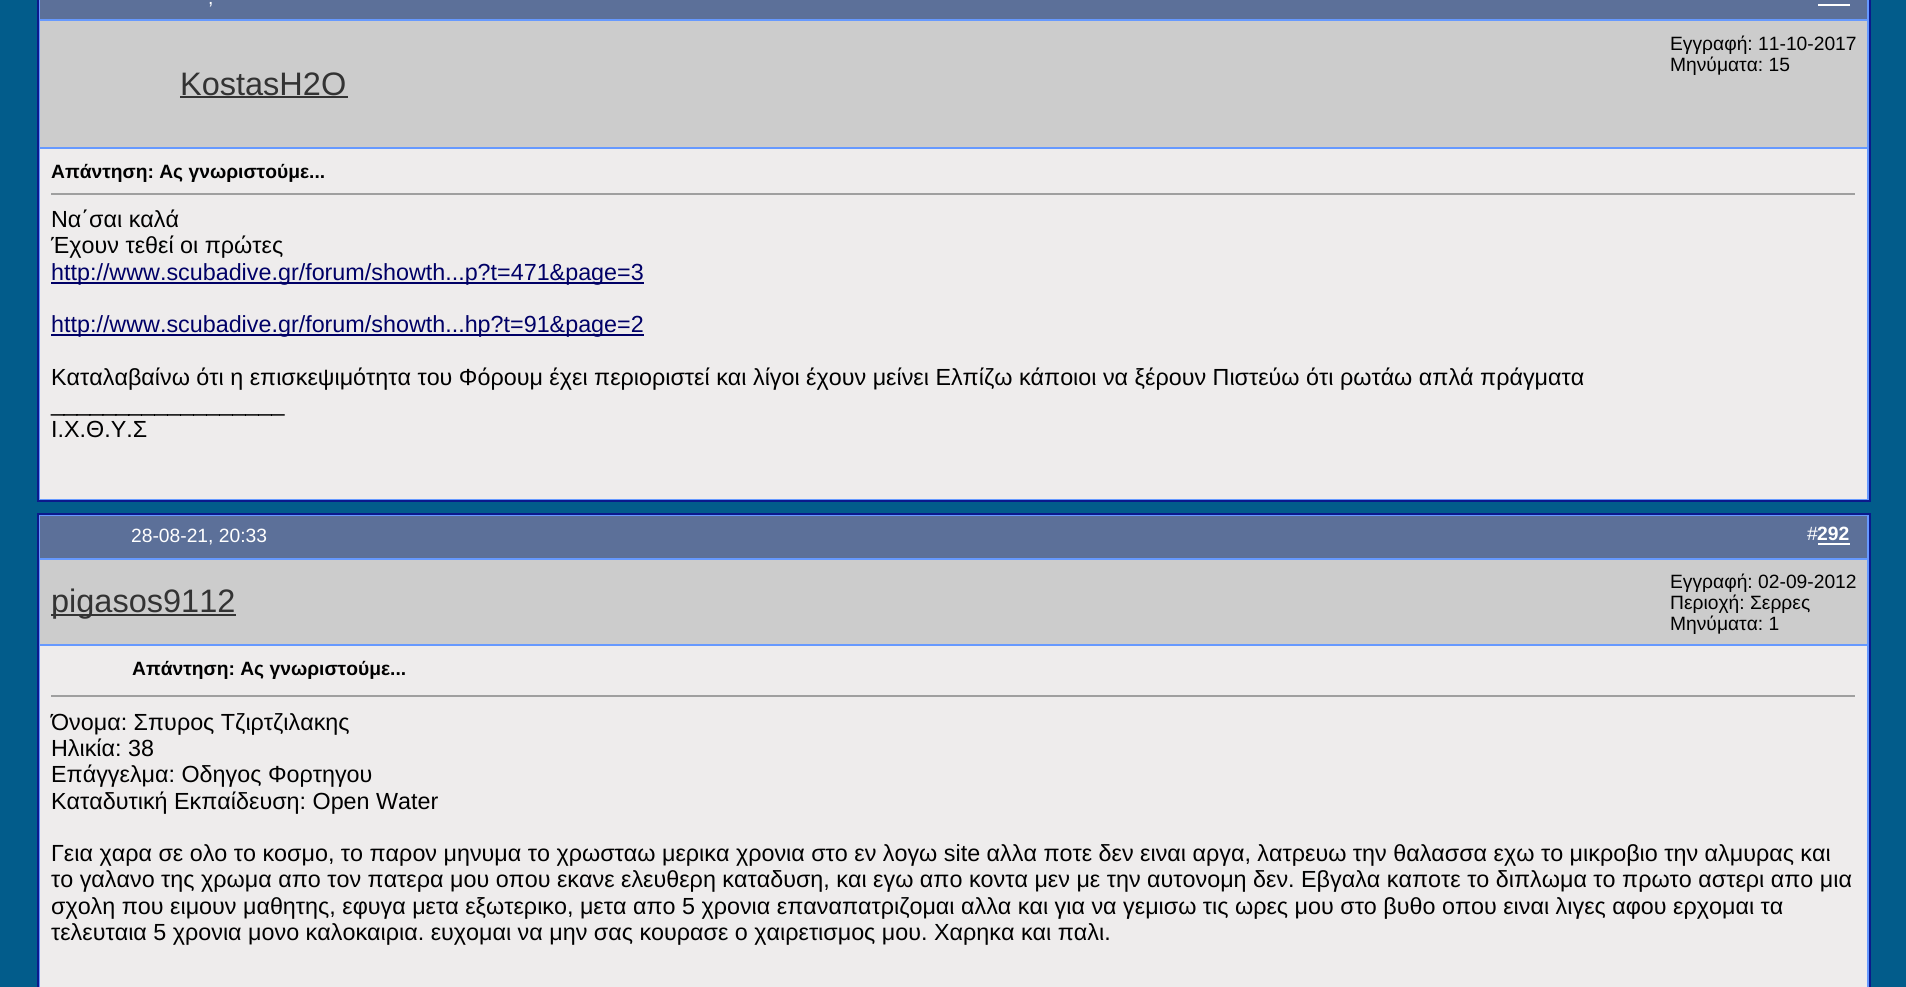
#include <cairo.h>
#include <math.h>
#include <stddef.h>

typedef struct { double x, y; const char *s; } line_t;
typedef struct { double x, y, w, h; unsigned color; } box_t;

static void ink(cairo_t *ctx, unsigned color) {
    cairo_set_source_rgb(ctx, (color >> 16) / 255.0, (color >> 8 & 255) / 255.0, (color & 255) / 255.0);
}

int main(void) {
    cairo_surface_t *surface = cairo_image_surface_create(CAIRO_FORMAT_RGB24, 1906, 987);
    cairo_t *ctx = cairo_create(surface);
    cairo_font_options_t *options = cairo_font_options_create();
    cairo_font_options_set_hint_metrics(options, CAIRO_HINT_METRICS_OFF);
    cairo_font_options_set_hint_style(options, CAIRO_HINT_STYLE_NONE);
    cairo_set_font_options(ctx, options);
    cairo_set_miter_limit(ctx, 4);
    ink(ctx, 0x025C8B);
    cairo_paint(ctx);
    ink(ctx, 0x6699FF);
    cairo_rectangle(ctx, 38, -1, 1832, 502);
    cairo_fill_preserve(ctx);
    ink(ctx, 0x0B198C);
    cairo_stroke(ctx);
    ink(ctx, 0x5C7099);
    cairo_rectangle(ctx, 40, 0, 1827, 19);
    cairo_fill(ctx);
    cairo_select_font_face(ctx, "Liberation Sans", CAIRO_FONT_SLANT_NORMAL, CAIRO_FONT_WEIGHT_NORMAL);
    cairo_set_font_size(ctx, 19.25);
    ink(ctx, 0xFFFFFF);
    cairo_move_to(ctx, 208, 4);
    cairo_show_text(ctx, ",");
    cairo_rectangle(ctx, 1818, 4, 32, 2);
    cairo_fill(ctx);
    ink(ctx, 0xCCCCCC);
    cairo_rectangle(ctx, 40, 21, 1827, 126);
    cairo_fill(ctx);
    ink(ctx, 0x000000);
    cairo_move_to(ctx, 1670, 50);
    cairo_show_text(ctx, "Εγγραφή: 11-10-2017");
    cairo_move_to(ctx, 1670, 71);
    cairo_show_text(ctx, "Μηνύματα: 15");
    cairo_set_font_size(ctx, 32.5);
    ink(ctx, 0x333333);
    cairo_move_to(ctx, 180, 95);
    cairo_show_text(ctx, "KostasH2O");
    cairo_rectangle(ctx, 180, 96, 168, 2);
    cairo_fill(ctx);
    ink(ctx, 0xEEECEC);
    cairo_rectangle(ctx, 40, 149, 1827, 350);
    cairo_fill(ctx);
    cairo_select_font_face(ctx, "Liberation Sans", CAIRO_FONT_SLANT_NORMAL, CAIRO_FONT_WEIGHT_BOLD);
    cairo_set_font_size(ctx, 19.25);
    ink(ctx, 0x000000);
    cairo_move_to(ctx, 51, 178);
    cairo_show_text(ctx, "Απάντηση: Ας γνωριστούμε...");
    ink(ctx, 0x9F9F9F);
    cairo_rectangle(ctx, 51, 193, 1806, 2);
    cairo_fill(ctx);
    ink(ctx, 0xEEEEEE);
    cairo_rectangle(ctx, 1855, 193, 2, 2);
    cairo_fill(ctx);
    cairo_select_font_face(ctx, "Liberation Sans", CAIRO_FONT_SLANT_NORMAL, CAIRO_FONT_WEIGHT_NORMAL);
    cairo_set_font_size(ctx, 23.33);
    ink(ctx, 0x000000);
    cairo_move_to(ctx, 51, 227);
    cairo_show_text(ctx, "Να΄σαι καλά");
    cairo_move_to(ctx, 51, 253);
    cairo_show_text(ctx, "Έχουν τεθεί οι πρώτες");
    ink(ctx, 0x000066);
    cairo_rectangle(ctx, 51, 282, 593, 2);
    cairo_fill(ctx);
    cairo_move_to(ctx, 51, 280);
    cairo_show_text(ctx, "http://www.scubadive.gr/forum/showth...p?t=471&page=3");
    cairo_rectangle(ctx, 51, 334, 593, 2);
    cairo_fill(ctx);
    cairo_move_to(ctx, 51, 332);
    cairo_show_text(ctx, "http://www.scubadive.gr/forum/showth...hp?t=91&page=2");
    ink(ctx, 0x000000);
    {
        static const line_t items[] = {
            {51, 385, "Καταλαβαίνω ότι η επισκεψιμότητα του Φόρουμ έχει περιοριστεί και λίγοι έχουν μείνει Ελπίζω κάποιοι να ξέρουν Πιστεύω ότι ρωτάω απλά πράγματα"},
            {51, 411, "__________________"},
            {51, 437, "Ι.Χ.Θ.Υ.Σ"},
        };
        for (size_t i = 0; i < sizeof items / sizeof *items; i++) {
            cairo_move_to(ctx, items[i].x, items[i].y);
            cairo_show_text(ctx, items[i].s);
        }
    }
    ink(ctx, 0x6699FF);
    cairo_rectangle(ctx, 38, 514, 1832, 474);
    cairo_fill_preserve(ctx);
    ink(ctx, 0x0B198C);
    cairo_stroke(ctx);
    ink(ctx, 0x5C7099);
    cairo_rectangle(ctx, 40, 516, 1827, 42);
    cairo_fill(ctx);
    cairo_set_font_size(ctx, 19.25);
    ink(ctx, 0xFFFFFF);
    cairo_move_to(ctx, 131, 542);
    cairo_show_text(ctx, "28-08-21, 20:33");
    cairo_move_to(ctx, 1807, 540);
    cairo_show_text(ctx, "#");
    cairo_select_font_face(ctx, "Liberation Sans", CAIRO_FONT_SLANT_NORMAL, CAIRO_FONT_WEIGHT_BOLD);
    cairo_move_to(ctx, 1817, 540);
    cairo_show_text(ctx, "292");
    {
        static const box_t items[] = {
            {1818, 543, 32, 2, 0xFFFFFF},
            {40, 560, 1827, 84, 0xCCCCCC},
            {51, 614, 185, 2, 0x333333},
        };
        for (size_t i = 0; i < sizeof items / sizeof *items; i++) {
            ink(ctx, items[i].color);
            cairo_rectangle(ctx, items[i].x, items[i].y, items[i].w, items[i].h);
            cairo_fill(ctx);
        }
    }
    cairo_select_font_face(ctx, "Liberation Sans", CAIRO_FONT_SLANT_NORMAL, CAIRO_FONT_WEIGHT_NORMAL);
    cairo_set_font_size(ctx, 32.5);
    cairo_move_to(ctx, 51, 612);
    cairo_show_text(ctx, "pigasos9112");
    cairo_set_font_size(ctx, 19.25);
    ink(ctx, 0x000000);
    {
        static const line_t items[] = {
            {1670, 588, "Εγγραφή: 02-09-2012"},
            {1670, 609, "Περιοχή: Σερρες"},
            {1670, 630, "Μηνύματα: 1"},
        };
        for (size_t i = 0; i < sizeof items / sizeof *items; i++) {
            cairo_move_to(ctx, items[i].x, items[i].y);
            cairo_show_text(ctx, items[i].s);
        }
    }
    ink(ctx, 0xEEECEC);
    cairo_rectangle(ctx, 40, 646, 1827, 341);
    cairo_fill(ctx);
    cairo_select_font_face(ctx, "Liberation Sans", CAIRO_FONT_SLANT_NORMAL, CAIRO_FONT_WEIGHT_BOLD);
    ink(ctx, 0x000000);
    cairo_move_to(ctx, 132, 675);
    cairo_show_text(ctx, "Απάντηση: Ας γνωριστούμε...");
    ink(ctx, 0x9F9F9F);
    cairo_rectangle(ctx, 51, 695, 1806, 2);
    cairo_fill(ctx);
    ink(ctx, 0xEEEEEE);
    cairo_rectangle(ctx, 1855, 695, 2, 2);
    cairo_fill(ctx);
    cairo_select_font_face(ctx, "Liberation Sans", CAIRO_FONT_SLANT_NORMAL, CAIRO_FONT_WEIGHT_NORMAL);
    cairo_set_font_size(ctx, 23.33);
    ink(ctx, 0x000000);
    {
        static const line_t items[] = {
            {51, 730, "Όνομα: Σπυρος Τζιρτζιλακης"},
            {51, 756, "Ηλικία: 38"},
            {51, 782, "Επάγγελμα: Οδηγος Φορτηγου"},
            {51, 809, "Καταδυτική Εκπαίδευση: Open Water"},
            {51, 861, "Γεια χαρα σε ολο το κοσμο, το παρον μηνυμα το χρωσταω μερικα χρονια στο εν λογω site αλλα ποτε δεν ειναι αργα, λατρευω την θαλασσα εχω το μικροβιο την αλμυρας και"},
            {51, 887, "το γαλανο της χρωμα απο τον πατερα μου οπου εκανε ελευθερη καταδυση, και εγω απο κοντα μεν με την αυτονομη δεν. Εβγαλα καποτε το διπλωμα το πρωτο αστερι απο μια"},
            {51, 914, "σχολη που ειμουν μαθητης, εφυγα μετα εξωτερικο, μετα απο 5 χρονια επαναπατριζομαι αλλα και για να γεμισω τις ωρες μου στο βυθο οπου ειναι λιγες αφου ερχομαι τα"},
            {51, 940, "τελευταια 5 χρονια μονο καλοκαιρια. ευχομαι να μην σας κουρασε ο χαιρετισμος μου. Χαρηκα και παλι."},
        };
        for (size_t i = 0; i < sizeof items / sizeof *items; i++) {
            cairo_move_to(ctx, items[i].x, items[i].y);
            cairo_show_text(ctx, items[i].s);
        }
    }
    cairo_surface_write_to_png(surface, "image.png");
    cairo_font_options_destroy(options);
    cairo_destroy(ctx);
    cairo_surface_destroy(surface);
    return 0;
}
